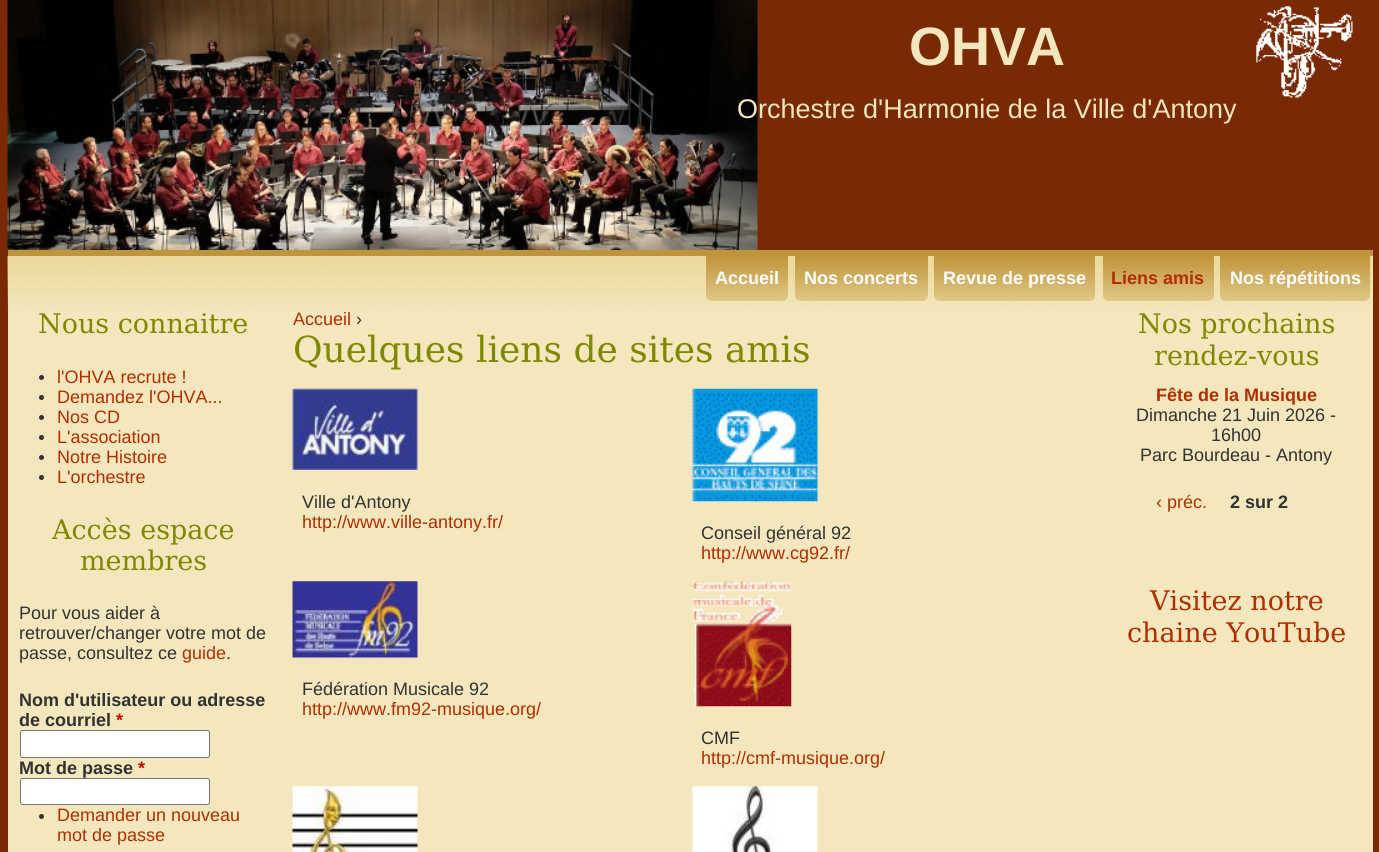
#include <cairo.h>
#include <math.h>
#include <stddef.h>

typedef struct { double x, y; const char *s; } line_t;

static void ink(cairo_t *ctx, unsigned color) {
    cairo_set_source_rgb(ctx, (color >> 16) / 255.0, (color >> 8 & 255) / 255.0, (color & 255) / 255.0);
}

static void round_path(cairo_t *ctx, double x, double y, double w, double h, double r) {
    cairo_new_sub_path(ctx);
    cairo_arc(ctx, x + w - r, y + h - r, r, 0, M_PI / 2);
    cairo_arc(ctx, x + r, y + h - r, r, M_PI / 2, M_PI);
    cairo_arc(ctx, x + r, y + r, r, M_PI, 1.5 * M_PI);
    cairo_arc(ctx, x + w - r, y + r, r, 1.5 * M_PI, 2 * M_PI);
    cairo_close_path(ctx);
}

static void paste(cairo_t *ctx, const char *path, double x, double y, double w, double h) {
    cairo_surface_t *image = cairo_image_surface_create_from_png(path);
    cairo_save(ctx);
    cairo_set_source_surface(ctx, image, x, y);
    cairo_rectangle(ctx, x, y, w, h);
    cairo_fill(ctx);
    cairo_restore(ctx);
    cairo_surface_destroy(image);
}

int main(void) {
    cairo_surface_t *surface = cairo_image_surface_create(CAIRO_FORMAT_RGB24, 1379, 852);
    cairo_t *ctx = cairo_create(surface);
    cairo_font_options_t *options = cairo_font_options_create();
    cairo_font_options_set_hint_metrics(options, CAIRO_HINT_METRICS_OFF);
    cairo_font_options_set_hint_style(options, CAIRO_HINT_STYLE_NONE);
    cairo_set_font_options(ctx, options);
    cairo_set_miter_limit(ctx, 4);
    cairo_pattern_t *gradient;
    ink(ctx, 0x792904);
    cairo_paint(ctx);
    paste(ctx, "media/1.png", 7, 0, 751, 250);
    cairo_select_font_face(ctx, "Liberation Sans", CAIRO_FONT_SLANT_NORMAL, CAIRO_FONT_WEIGHT_BOLD);
    cairo_set_font_size(ctx, 54);
    ink(ctx, 0xF4E7BD);
    cairo_move_to(ctx, 909, 65);
    cairo_show_text(ctx, "OHVA");
    cairo_select_font_face(ctx, "Liberation Sans", CAIRO_FONT_SLANT_NORMAL, CAIRO_FONT_WEIGHT_NORMAL);
    cairo_set_font_size(ctx, 27);
    cairo_move_to(ctx, 737, 118);
    cairo_show_text(ctx, "Orchestre d'Harmonie de la Ville d'Antony");
    paste(ctx, "media/2.png", 1256, 6, 97, 92);
    cairo_rectangle(ctx, 8, 256, 1365, 596);
    cairo_fill(ctx);
    paste(ctx, "media/3.png", 7, 256, 1366, 55);
    ink(ctx, 0xC0943C);
    cairo_rectangle(ctx, 8, 250, 1365, 6);
    cairo_fill(ctx);
    gradient = cairo_pattern_create_linear(747, 256, 747, 301);
    cairo_pattern_add_color_stop_rgba(gradient, 0, 0.753, 0.58, 0.235, 1);
    cairo_pattern_add_color_stop_rgba(gradient, 1, 0.878, 0.784, 0.525, 1);
    cairo_set_source(ctx, gradient);
    cairo_pattern_destroy(gradient);
    cairo_new_path(ctx);
    cairo_move_to(ctx, 706, 256);
    cairo_line_to(ctx, 788, 256);
    cairo_line_to(ctx, 788, 295);
    cairo_curve_to(ctx, 788, 298.5, 785.5, 301, 782, 301);
    cairo_line_to(ctx, 712, 301);
    cairo_curve_to(ctx, 708.5, 301, 706, 298.5, 706, 295);
    cairo_close_path(ctx);
    cairo_fill(ctx);
    cairo_select_font_face(ctx, "Liberation Sans", CAIRO_FONT_SLANT_NORMAL, CAIRO_FONT_WEIGHT_BOLD);
    cairo_set_font_size(ctx, 18);
    ink(ctx, 0xFFFFFF);
    cairo_move_to(ctx, 715, 284);
    cairo_show_text(ctx, "Accueil");
    gradient = cairo_pattern_create_linear(861, 256, 861, 301);
    cairo_pattern_add_color_stop_rgba(gradient, 0, 0.753, 0.58, 0.235, 1);
    cairo_pattern_add_color_stop_rgba(gradient, 1, 0.878, 0.784, 0.525, 1);
    cairo_set_source(ctx, gradient);
    cairo_pattern_destroy(gradient);
    cairo_new_path(ctx);
    cairo_move_to(ctx, 795, 256);
    cairo_line_to(ctx, 928, 256);
    cairo_line_to(ctx, 928, 295);
    cairo_curve_to(ctx, 928, 298.5, 925.5, 301, 922, 301);
    cairo_line_to(ctx, 801, 301);
    cairo_curve_to(ctx, 797.5, 301, 795, 298.5, 795, 295);
    cairo_close_path(ctx);
    cairo_fill(ctx);
    ink(ctx, 0xFFFFFF);
    cairo_move_to(ctx, 804, 284);
    cairo_show_text(ctx, "Nos concerts");
    gradient = cairo_pattern_create_linear(1014, 256, 1014, 301);
    cairo_pattern_add_color_stop_rgba(gradient, 0, 0.753, 0.58, 0.235, 1);
    cairo_pattern_add_color_stop_rgba(gradient, 1, 0.878, 0.784, 0.525, 1);
    cairo_set_source(ctx, gradient);
    cairo_pattern_destroy(gradient);
    cairo_new_path(ctx);
    cairo_move_to(ctx, 934, 256);
    cairo_line_to(ctx, 1095, 256);
    cairo_line_to(ctx, 1095, 295);
    cairo_curve_to(ctx, 1095, 298.5, 1092.5, 301, 1089, 301);
    cairo_line_to(ctx, 940, 301);
    cairo_curve_to(ctx, 936.5, 301, 934, 298.5, 934, 295);
    cairo_close_path(ctx);
    cairo_fill(ctx);
    ink(ctx, 0xFFFFFF);
    cairo_move_to(ctx, 943, 284);
    cairo_show_text(ctx, "Revue de presse");
    gradient = cairo_pattern_create_linear(1158, 256, 1158, 301);
    cairo_pattern_add_color_stop_rgba(gradient, 0, 0.753, 0.58, 0.235, 1);
    cairo_pattern_add_color_stop_rgba(gradient, 1, 0.878, 0.784, 0.525, 1);
    cairo_set_source(ctx, gradient);
    cairo_pattern_destroy(gradient);
    cairo_new_path(ctx);
    cairo_move_to(ctx, 1103, 256);
    cairo_line_to(ctx, 1214, 256);
    cairo_line_to(ctx, 1214, 295);
    cairo_curve_to(ctx, 1214, 298.5, 1211.5, 301, 1208, 301);
    cairo_line_to(ctx, 1109, 301);
    cairo_curve_to(ctx, 1105.5, 301, 1103, 298.5, 1103, 295);
    cairo_close_path(ctx);
    cairo_fill(ctx);
    ink(ctx, 0xB22D00);
    cairo_move_to(ctx, 1111, 284);
    cairo_show_text(ctx, "Liens amis");
    gradient = cairo_pattern_create_linear(1295, 256, 1295, 301);
    cairo_pattern_add_color_stop_rgba(gradient, 0, 0.753, 0.58, 0.235, 1);
    cairo_pattern_add_color_stop_rgba(gradient, 1, 0.878, 0.784, 0.525, 1);
    cairo_set_source(ctx, gradient);
    cairo_pattern_destroy(gradient);
    cairo_new_path(ctx);
    cairo_move_to(ctx, 1220, 256);
    cairo_line_to(ctx, 1370, 256);
    cairo_line_to(ctx, 1370, 295);
    cairo_curve_to(ctx, 1370, 298.5, 1367.5, 301, 1364, 301);
    cairo_line_to(ctx, 1226, 301);
    cairo_curve_to(ctx, 1222.5, 301, 1220, 298.5, 1220, 295);
    cairo_close_path(ctx);
    cairo_fill(ctx);
    ink(ctx, 0xFFFFFF);
    cairo_move_to(ctx, 1230, 284);
    cairo_show_text(ctx, "Nos répétitions");
    cairo_select_font_face(ctx, "Liberation Sans", CAIRO_FONT_SLANT_NORMAL, CAIRO_FONT_WEIGHT_NORMAL);
    ink(ctx, 0xB22D00);
    cairo_move_to(ctx, 293, 325);
    cairo_show_text(ctx, "Accueil");
    ink(ctx, 0x323232);
    cairo_move_to(ctx, 356, 325);
    cairo_show_text(ctx, "›");
    cairo_select_font_face(ctx, "DejaVu Serif", CAIRO_FONT_SLANT_NORMAL, CAIRO_FONT_WEIGHT_NORMAL);
    cairo_set_font_size(ctx, 36);
    ink(ctx, 0x7E8901);
    cairo_move_to(ctx, 293, 362);
    cairo_show_text(ctx, "Quelques liens de sites amis");
    paste(ctx, "media/4.png", 292, 388, 126, 82);
    cairo_select_font_face(ctx, "Liberation Sans", CAIRO_FONT_SLANT_NORMAL, CAIRO_FONT_WEIGHT_NORMAL);
    cairo_set_font_size(ctx, 18);
    ink(ctx, 0x323232);
    cairo_move_to(ctx, 302, 508);
    cairo_show_text(ctx, "Ville d'Antony");
    ink(ctx, 0xB22D00);
    cairo_move_to(ctx, 302, 528);
    cairo_show_text(ctx, "http://www.ville-antony.fr/");
    paste(ctx, "media/5.png", 692, 388, 126, 114);
    ink(ctx, 0x323232);
    cairo_move_to(ctx, 701, 539);
    cairo_show_text(ctx, "Conseil général 92");
    ink(ctx, 0xB22D00);
    cairo_move_to(ctx, 701, 559);
    cairo_show_text(ctx, "http://www.cg92.fr/");
    paste(ctx, "media/6.png", 292, 581, 126, 77);
    ink(ctx, 0x323232);
    cairo_move_to(ctx, 302, 695);
    cairo_show_text(ctx, "Fédération Musicale 92");
    ink(ctx, 0xB22D00);
    cairo_move_to(ctx, 302, 715);
    cairo_show_text(ctx, "http://www.fm92-musique.org/");
    paste(ctx, "media/7.png", 692, 581, 100, 126);
    ink(ctx, 0x323232);
    cairo_move_to(ctx, 701, 744);
    cairo_show_text(ctx, "CMF");
    ink(ctx, 0xB22D00);
    cairo_move_to(ctx, 701, 764);
    cairo_show_text(ctx, "http://cmf-musique.org/");
    paste(ctx, "media/8.png", 292, 786, 126, 66);
    paste(ctx, "media/9.png", 692, 786, 126, 66);
    cairo_select_font_face(ctx, "DejaVu Serif", CAIRO_FONT_SLANT_NORMAL, CAIRO_FONT_WEIGHT_NORMAL);
    cairo_set_font_size(ctx, 27);
    ink(ctx, 0x7E8901);
    cairo_move_to(ctx, 38, 333);
    cairo_show_text(ctx, "Nous connaitre");
    ink(ctx, 0x323232);
    cairo_new_path(ctx);
    cairo_arc(ctx, 41.5, 377.5, 2.5, 0, 2 * M_PI);
    cairo_fill(ctx);
    cairo_select_font_face(ctx, "Liberation Sans", CAIRO_FONT_SLANT_NORMAL, CAIRO_FONT_WEIGHT_NORMAL);
    cairo_set_font_size(ctx, 18);
    ink(ctx, 0xB22D00);
    cairo_move_to(ctx, 57, 383);
    cairo_show_text(ctx, "l'OHVA recrute !");
    ink(ctx, 0x323232);
    cairo_new_path(ctx);
    cairo_arc(ctx, 41.5, 397.5, 2.5, 0, 2 * M_PI);
    cairo_fill(ctx);
    ink(ctx, 0xB22D00);
    cairo_move_to(ctx, 57, 403);
    cairo_show_text(ctx, "Demandez l'OHVA...");
    ink(ctx, 0x323232);
    cairo_new_path(ctx);
    cairo_arc(ctx, 41.5, 417.5, 2.5, 0, 2 * M_PI);
    cairo_fill(ctx);
    ink(ctx, 0xB22D00);
    cairo_move_to(ctx, 57, 423);
    cairo_show_text(ctx, "Nos CD");
    ink(ctx, 0x323232);
    cairo_new_path(ctx);
    cairo_arc(ctx, 41.5, 437.5, 2.5, 0, 2 * M_PI);
    cairo_fill(ctx);
    ink(ctx, 0xB22D00);
    cairo_move_to(ctx, 57, 443);
    cairo_show_text(ctx, "L'association");
    ink(ctx, 0x323232);
    cairo_new_path(ctx);
    cairo_arc(ctx, 41.5, 457.5, 2.5, 0, 2 * M_PI);
    cairo_fill(ctx);
    ink(ctx, 0xB22D00);
    cairo_move_to(ctx, 57, 463);
    cairo_show_text(ctx, "Notre Histoire");
    ink(ctx, 0x323232);
    cairo_new_path(ctx);
    cairo_arc(ctx, 41.5, 477.5, 2.5, 0, 2 * M_PI);
    cairo_fill(ctx);
    ink(ctx, 0xB22D00);
    cairo_move_to(ctx, 57, 483);
    cairo_show_text(ctx, "L'orchestre");
    cairo_select_font_face(ctx, "DejaVu Serif", CAIRO_FONT_SLANT_NORMAL, CAIRO_FONT_WEIGHT_NORMAL);
    cairo_set_font_size(ctx, 27);
    ink(ctx, 0x7E8901);
    cairo_move_to(ctx, 52, 539);
    cairo_show_text(ctx, "Accès espace");
    cairo_move_to(ctx, 80, 570);
    cairo_show_text(ctx, "membres");
    cairo_select_font_face(ctx, "Liberation Sans", CAIRO_FONT_SLANT_NORMAL, CAIRO_FONT_WEIGHT_NORMAL);
    cairo_set_font_size(ctx, 18);
    ink(ctx, 0x323232);
    {
        static const line_t items[] = {
            {19, 619, "Pour vous aider à"},
            {19, 639, "retrouver/changer votre mot de"},
            {19, 659, "passe, consultez ce"},
        };
        for (size_t i = 0; i < sizeof items / sizeof *items; i++) {
            cairo_move_to(ctx, items[i].x, items[i].y);
            cairo_show_text(ctx, items[i].s);
        }
    }
    ink(ctx, 0xB22D00);
    cairo_move_to(ctx, 182, 659);
    cairo_show_text(ctx, "guide");
    ink(ctx, 0x323232);
    cairo_move_to(ctx, 226, 659);
    cairo_show_text(ctx, ".");
    cairo_select_font_face(ctx, "Liberation Sans", CAIRO_FONT_SLANT_NORMAL, CAIRO_FONT_WEIGHT_BOLD);
    cairo_move_to(ctx, 19, 706);
    cairo_show_text(ctx, "Nom d'utilisateur ou adresse");
    cairo_move_to(ctx, 19, 726);
    cairo_show_text(ctx, "de courriel");
    ink(ctx, 0xCC0000);
    cairo_move_to(ctx, 116, 726);
    cairo_show_text(ctx, "*");
    ink(ctx, 0xFFFFFF);
    round_path(ctx, 20.5, 730.5, 189, 27, 2);
    cairo_fill_preserve(ctx);
    ink(ctx, 0x767676);
    cairo_set_line_width(ctx, 1);
    cairo_stroke(ctx);
    ink(ctx, 0x323232);
    cairo_move_to(ctx, 19, 774);
    cairo_show_text(ctx, "Mot de passe");
    ink(ctx, 0xCC0000);
    cairo_move_to(ctx, 138, 774);
    cairo_show_text(ctx, "*");
    ink(ctx, 0xFFFFFF);
    round_path(ctx, 20.5, 778.5, 189, 26, 2);
    cairo_fill_preserve(ctx);
    ink(ctx, 0x767676);
    cairo_stroke(ctx);
    ink(ctx, 0x323232);
    cairo_arc(ctx, 41.5, 816.5, 2.5, 0, 2 * M_PI);
    cairo_fill(ctx);
    cairo_select_font_face(ctx, "Liberation Sans", CAIRO_FONT_SLANT_NORMAL, CAIRO_FONT_WEIGHT_NORMAL);
    ink(ctx, 0xB22D00);
    cairo_move_to(ctx, 57, 821);
    cairo_show_text(ctx, "Demander un nouveau");
    cairo_move_to(ctx, 57, 841);
    cairo_show_text(ctx, "mot de passe");
    cairo_select_font_face(ctx, "DejaVu Serif", CAIRO_FONT_SLANT_NORMAL, CAIRO_FONT_WEIGHT_NORMAL);
    cairo_set_font_size(ctx, 27);
    ink(ctx, 0x7E8901);
    cairo_move_to(ctx, 1138, 333);
    cairo_show_text(ctx, "Nos prochains");
    cairo_move_to(ctx, 1154, 365);
    cairo_show_text(ctx, "rendez-vous");
    cairo_select_font_face(ctx, "Liberation Sans", CAIRO_FONT_SLANT_NORMAL, CAIRO_FONT_WEIGHT_BOLD);
    cairo_set_font_size(ctx, 18);
    ink(ctx, 0xB22D00);
    cairo_move_to(ctx, 1156, 401);
    cairo_show_text(ctx, "Fête de la Musique");
    cairo_select_font_face(ctx, "Liberation Sans", CAIRO_FONT_SLANT_NORMAL, CAIRO_FONT_WEIGHT_NORMAL);
    ink(ctx, 0x323232);
    {
        static const line_t items[] = {
            {1136, 421, "Dimanche 21 Juin 2026 -"},
            {1211, 441, "16h00"},
            {1140, 461, "Parc Bourdeau - Antony"},
        };
        for (size_t i = 0; i < sizeof items / sizeof *items; i++) {
            cairo_move_to(ctx, items[i].x, items[i].y);
            cairo_show_text(ctx, items[i].s);
        }
    }
    ink(ctx, 0xB22D00);
    cairo_move_to(ctx, 1156, 508);
    cairo_show_text(ctx, "‹ préc.");
    cairo_select_font_face(ctx, "Liberation Sans", CAIRO_FONT_SLANT_NORMAL, CAIRO_FONT_WEIGHT_BOLD);
    ink(ctx, 0x323232);
    cairo_move_to(ctx, 1230, 508);
    cairo_show_text(ctx, "2 sur 2");
    cairo_select_font_face(ctx, "DejaVu Serif", CAIRO_FONT_SLANT_NORMAL, CAIRO_FONT_WEIGHT_NORMAL);
    cairo_set_font_size(ctx, 27);
    ink(ctx, 0xB22D00);
    cairo_move_to(ctx, 1150, 610);
    cairo_show_text(ctx, "Visitez notre");
    cairo_move_to(ctx, 1127, 642);
    cairo_show_text(ctx, "chaine YouTube");
    cairo_surface_write_to_png(surface, "image.png");
    cairo_font_options_destroy(options);
    cairo_destroy(ctx);
    cairo_surface_destroy(surface);
    return 0;
}
